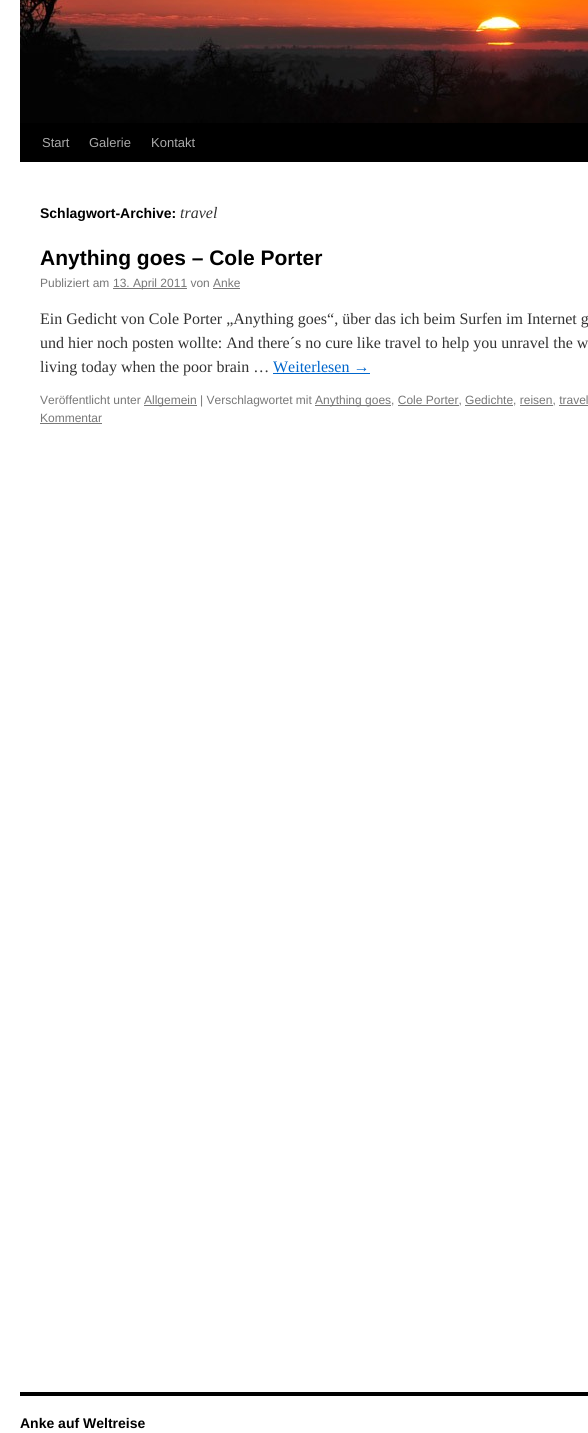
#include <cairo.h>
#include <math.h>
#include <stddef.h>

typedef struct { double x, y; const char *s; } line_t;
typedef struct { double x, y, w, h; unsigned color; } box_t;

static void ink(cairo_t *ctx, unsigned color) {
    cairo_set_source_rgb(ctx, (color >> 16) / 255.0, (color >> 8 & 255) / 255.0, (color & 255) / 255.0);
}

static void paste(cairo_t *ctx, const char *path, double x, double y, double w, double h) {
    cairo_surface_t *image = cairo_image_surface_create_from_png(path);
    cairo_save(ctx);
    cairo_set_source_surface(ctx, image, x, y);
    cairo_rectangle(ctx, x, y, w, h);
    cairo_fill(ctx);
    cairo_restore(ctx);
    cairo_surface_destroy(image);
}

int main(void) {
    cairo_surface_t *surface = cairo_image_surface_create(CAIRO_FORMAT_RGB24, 588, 1433);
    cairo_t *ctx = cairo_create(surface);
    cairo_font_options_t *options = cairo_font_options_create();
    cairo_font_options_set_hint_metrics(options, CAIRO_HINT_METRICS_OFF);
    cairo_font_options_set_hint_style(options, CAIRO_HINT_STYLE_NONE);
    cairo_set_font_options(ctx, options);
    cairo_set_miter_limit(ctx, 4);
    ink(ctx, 0xFFFFFF);
    cairo_paint(ctx);
    ink(ctx, 0x000000);
    cairo_rectangle(ctx, 20, 123, 568, 39);
    cairo_fill(ctx);
    paste(ctx, "media/1.png", 20, 0, 568, 123);
    cairo_select_font_face(ctx, "Liberation Sans", CAIRO_FONT_SLANT_NORMAL, CAIRO_FONT_WEIGHT_NORMAL);
    cairo_set_font_size(ctx, 13);
    ink(ctx, 0xAAAAAA);
    {
        static const line_t items[] = {
            {42, 147, "Start"},
            {89, 147, "Galerie"},
            {151, 147, "Kontakt"},
        };
        for (size_t i = 0; i < sizeof items / sizeof *items; i++) {
            cairo_move_to(ctx, items[i].x, items[i].y);
            cairo_show_text(ctx, items[i].s);
        }
    }
    cairo_select_font_face(ctx, "Liberation Sans", CAIRO_FONT_SLANT_NORMAL, CAIRO_FONT_WEIGHT_BOLD);
    cairo_set_font_size(ctx, 14);
    ink(ctx, 0x000000);
    cairo_move_to(ctx, 40, 218);
    cairo_show_text(ctx, "Schlagwort-Archive:");
    cairo_select_font_face(ctx, "Liberation Serif", CAIRO_FONT_SLANT_ITALIC, CAIRO_FONT_WEIGHT_NORMAL);
    cairo_set_font_size(ctx, 16);
    ink(ctx, 0x333333);
    cairo_move_to(ctx, 180, 218);
    cairo_show_text(ctx, "travel");
    cairo_select_font_face(ctx, "Liberation Sans", CAIRO_FONT_SLANT_NORMAL, CAIRO_FONT_WEIGHT_BOLD);
    cairo_set_font_size(ctx, 21);
    ink(ctx, 0x000000);
    cairo_move_to(ctx, 40, 265);
    cairo_show_text(ctx, "Anything goes – Cole Porter");
    cairo_select_font_face(ctx, "Liberation Sans", CAIRO_FONT_SLANT_NORMAL, CAIRO_FONT_WEIGHT_NORMAL);
    cairo_set_font_size(ctx, 12);
    ink(ctx, 0x777777);
    cairo_move_to(ctx, 40, 287);
    cairo_show_text(ctx, "Publiziert am");
    cairo_rectangle(ctx, 113, 288, 74, 1);
    cairo_fill(ctx);
    cairo_move_to(ctx, 113, 287);
    cairo_show_text(ctx, "13. April 2011 von Anke");
    cairo_rectangle(ctx, 213, 288, 27, 1);
    cairo_fill(ctx);
    cairo_select_font_face(ctx, "Liberation Serif", CAIRO_FONT_SLANT_NORMAL, CAIRO_FONT_WEIGHT_NORMAL);
    cairo_set_font_size(ctx, 16);
    ink(ctx, 0x333333);
    {
        static const line_t items[] = {
            {40, 324, "Ein Gedicht von Cole Porter „Anything goes“, über das ich beim Surfen im Internet g"},
            {40, 348, "und hier noch posten wollte: And there´s no cure like travel to help you unravel the w"},
            {40, 372, "living today when the poor brain …"},
        };
        for (size_t i = 0; i < sizeof items / sizeof *items; i++) {
            cairo_move_to(ctx, items[i].x, items[i].y);
            cairo_show_text(ctx, items[i].s);
        }
    }
    ink(ctx, 0x0066CC);
    cairo_move_to(ctx, 273, 372);
    cairo_show_text(ctx, "Weiterlesen →");
    cairo_rectangle(ctx, 273, 373, 97, 1);
    cairo_fill(ctx);
    cairo_select_font_face(ctx, "Liberation Sans", CAIRO_FONT_SLANT_NORMAL, CAIRO_FONT_WEIGHT_NORMAL);
    cairo_set_font_size(ctx, 12);
    ink(ctx, 0x777777);
    cairo_move_to(ctx, 40, 404);
    cairo_show_text(ctx, "Veröffentlicht unter");
    cairo_rectangle(ctx, 144, 405, 53, 1);
    cairo_fill(ctx);
    cairo_move_to(ctx, 144, 404);
    cairo_show_text(ctx, "Allgemein | Verschlagwortet mit");
    cairo_rectangle(ctx, 315, 405, 76, 1);
    cairo_fill(ctx);
    cairo_move_to(ctx, 315, 404);
    cairo_show_text(ctx, "Anything goes, Cole Porter, Gedichte, reisen, travel");
    {
        static const box_t items[] = {
            {398, 405, 61, 1, 0x777777},
            {465, 405, 48, 1, 0x777777},
            {520, 405, 33, 1, 0x777777},
            {559, 405, 29, 1, 0x777777},
        };
        for (size_t i = 0; i < sizeof items / sizeof *items; i++) {
            ink(ctx, items[i].color);
            cairo_rectangle(ctx, items[i].x, items[i].y, items[i].w, items[i].h);
            cairo_fill(ctx);
        }
    }
    cairo_move_to(ctx, 40, 422);
    cairo_show_text(ctx, "Kommentar");
    cairo_rectangle(ctx, 40, 423, 62, 1);
    cairo_fill(ctx);
    ink(ctx, 0x000000);
    cairo_rectangle(ctx, 20, 1392, 568, 4);
    cairo_fill(ctx);
    cairo_select_font_face(ctx, "Liberation Sans", CAIRO_FONT_SLANT_NORMAL, CAIRO_FONT_WEIGHT_BOLD);
    cairo_set_font_size(ctx, 14);
    cairo_move_to(ctx, 20, 1428);
    cairo_show_text(ctx, "Anke auf Weltreise");
    cairo_surface_write_to_png(surface, "image.png");
    cairo_font_options_destroy(options);
    cairo_destroy(ctx);
    cairo_surface_destroy(surface);
    return 0;
}
